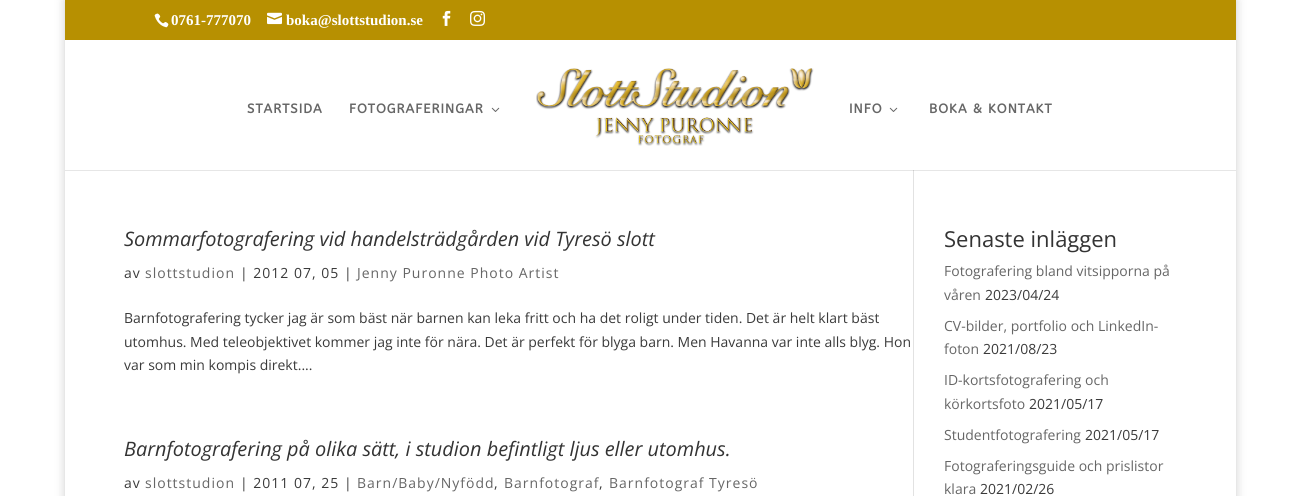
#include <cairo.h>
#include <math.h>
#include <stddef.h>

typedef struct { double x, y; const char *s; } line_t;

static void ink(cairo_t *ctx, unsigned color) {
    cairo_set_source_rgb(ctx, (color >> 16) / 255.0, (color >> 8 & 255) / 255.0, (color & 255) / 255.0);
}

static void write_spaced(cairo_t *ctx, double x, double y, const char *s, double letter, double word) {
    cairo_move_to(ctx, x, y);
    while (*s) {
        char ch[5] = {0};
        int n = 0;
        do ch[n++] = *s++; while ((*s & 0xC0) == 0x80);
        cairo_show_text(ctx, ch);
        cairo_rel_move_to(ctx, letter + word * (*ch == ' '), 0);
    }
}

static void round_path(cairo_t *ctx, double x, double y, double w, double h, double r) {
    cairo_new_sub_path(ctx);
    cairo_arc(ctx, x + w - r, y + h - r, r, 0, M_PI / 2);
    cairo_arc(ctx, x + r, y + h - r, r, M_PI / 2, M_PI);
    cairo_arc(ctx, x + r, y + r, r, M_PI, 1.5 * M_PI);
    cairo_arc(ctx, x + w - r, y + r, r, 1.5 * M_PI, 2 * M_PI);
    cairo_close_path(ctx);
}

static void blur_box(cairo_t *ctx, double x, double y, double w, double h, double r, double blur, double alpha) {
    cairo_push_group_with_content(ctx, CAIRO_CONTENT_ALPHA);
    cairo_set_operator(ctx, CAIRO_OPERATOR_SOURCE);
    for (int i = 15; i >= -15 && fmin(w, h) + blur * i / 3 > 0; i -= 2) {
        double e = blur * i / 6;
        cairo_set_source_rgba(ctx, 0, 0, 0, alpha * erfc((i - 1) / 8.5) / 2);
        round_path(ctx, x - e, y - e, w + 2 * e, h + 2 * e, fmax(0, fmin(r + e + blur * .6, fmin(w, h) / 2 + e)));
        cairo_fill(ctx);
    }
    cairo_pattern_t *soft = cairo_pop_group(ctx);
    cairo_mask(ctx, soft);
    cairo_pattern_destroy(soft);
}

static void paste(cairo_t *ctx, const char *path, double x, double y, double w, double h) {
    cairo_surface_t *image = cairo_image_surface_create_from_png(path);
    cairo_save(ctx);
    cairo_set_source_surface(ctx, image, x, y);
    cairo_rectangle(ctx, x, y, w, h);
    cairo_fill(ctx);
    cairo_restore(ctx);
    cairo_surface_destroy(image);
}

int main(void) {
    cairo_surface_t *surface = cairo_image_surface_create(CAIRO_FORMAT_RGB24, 1301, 496);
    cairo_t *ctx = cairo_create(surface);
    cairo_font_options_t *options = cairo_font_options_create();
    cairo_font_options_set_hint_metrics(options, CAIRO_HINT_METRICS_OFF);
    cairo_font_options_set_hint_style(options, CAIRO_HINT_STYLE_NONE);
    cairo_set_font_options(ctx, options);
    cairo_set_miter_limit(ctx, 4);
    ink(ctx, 0xFFFFFF);
    cairo_paint(ctx);
    ink(ctx, 0xE6E6E6);
    cairo_rectangle(ctx, 65, 170, 1171, 1);
    cairo_fill(ctx);
    cairo_save(ctx);
    cairo_set_fill_rule(ctx, CAIRO_FILL_RULE_EVEN_ODD);
    cairo_new_path(ctx);
    cairo_move_to(ctx, 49, 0);
    cairo_line_to(ctx, 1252, 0);
    cairo_line_to(ctx, 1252, 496);
    cairo_line_to(ctx, 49, 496);
    cairo_close_path(ctx);
    cairo_move_to(ctx, 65, 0);
    cairo_line_to(ctx, 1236, 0);
    cairo_line_to(ctx, 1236, 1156);
    cairo_line_to(ctx, 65, 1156);
    cairo_close_path(ctx);
    cairo_clip(ctx);
    ink(ctx, 0x000000);
    blur_box(ctx, 65, 0, 1171, 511, 0, 5, 0.2);
    cairo_restore(ctx);
    ink(ctx, 0xB79001);
    cairo_rectangle(ctx, 65, 0, 1171, 40);
    cairo_fill(ctx);
    paste(ctx, "media/1.png", 154, 13, 15, 15);
    cairo_select_font_face(ctx, "Liberation Serif", CAIRO_FONT_SLANT_NORMAL, CAIRO_FONT_WEIGHT_BOLD);
    cairo_set_font_size(ctx, 15);
    ink(ctx, 0xFFFFFF);
    cairo_move_to(ctx, 171, 25);
    cairo_show_text(ctx, "0761-777070");
    paste(ctx, "media/2.png", 267, 12, 15, 13);
    cairo_move_to(ctx, 286, 25);
    cairo_show_text(ctx, "boka@slottstudion.se");
    paste(ctx, "media/3.png", 442, 10, 9, 16);
    paste(ctx, "media/4.png", 470, 10, 15, 16);
    ink(ctx, 0xE2E2E2);
    cairo_rectangle(ctx, 913, 169, 1, 327);
    cairo_fill(ctx);
    ink(ctx, 0xFFFFFF);
    cairo_rectangle(ctx, 913, 169, 1, 1);
    cairo_fill(ctx);
    cairo_select_font_face(ctx, "ABeeZee", CAIRO_FONT_SLANT_NORMAL, CAIRO_FONT_WEIGHT_BOLD);
    cairo_set_font_size(ctx, 13);
    ink(ctx, 0x666666);
    write_spaced(ctx, 247, 113, "STARTSIDA", 1, 0);
    write_spaced(ctx, 349, 113, "FOTOGRAFERINGAR", 1, 0);
    paste(ctx, "media/5.png", 491, 107, 9, 5);
    paste(ctx, "media/6.png", 536, 68, 278, 78);
    write_spaced(ctx, 849, 113, "INFO", 1, 0);
    paste(ctx, "media/5.png", 889, 107, 9, 5);
    write_spaced(ctx, 929, 113, "BOKA & KONTAKT", 1, 0);
    ink(ctx, 0xCBCBCB);
    cairo_rectangle(ctx, 913, 170, 1, 1);
    cairo_fill(ctx);
    cairo_select_font_face(ctx, "Open Sans", CAIRO_FONT_SLANT_ITALIC, CAIRO_FONT_WEIGHT_NORMAL);
    cairo_set_font_size(ctx, 19.9);
    ink(ctx, 0x333333);
    cairo_move_to(ctx, 124, 246);
    cairo_show_text(ctx, "Sommarfotografering vid handelsträdgården vid Tyresö slott");
    cairo_select_font_face(ctx, "Open Sans", CAIRO_FONT_SLANT_NORMAL, CAIRO_FONT_WEIGHT_NORMAL);
    cairo_set_font_size(ctx, 14);
    ink(ctx, 0x3A3A3A);
    write_spaced(ctx, 124, 278, "av", 1, 0);
    ink(ctx, 0x666666);
    write_spaced(ctx, 145, 278, "slottstudion", 1, 0);
    ink(ctx, 0x3A3A3A);
    write_spaced(ctx, 240, 278, "| 2012 07, 05 |", 1, 0);
    ink(ctx, 0x666666);
    write_spaced(ctx, 357, 278, "Jenny Puronne Photo Artist", 1, 0);
    ink(ctx, 0x3A3A3A);
    {
        static const line_t items[] = {
            {124, 323, "Barnfotografering tycker jag är som bäst när barnen kan leka fritt och ha det roligt under tiden. Det är helt klart bäst"},
            {124, 347, "utomhus. Med teleobjektivet kommer jag inte för nära. Det är perfekt för blyga barn. Men Havanna var inte alls blyg. Hon"},
            {124, 370, "var som min kompis direkt...."},
        };
        for (size_t i = 0; i < sizeof items / sizeof *items; i++) {
            cairo_move_to(ctx, items[i].x, items[i].y);
            cairo_show_text(ctx, items[i].s);
        }
    }
    cairo_select_font_face(ctx, "Open Sans", CAIRO_FONT_SLANT_ITALIC, CAIRO_FONT_WEIGHT_NORMAL);
    cairo_set_font_size(ctx, 19.9);
    ink(ctx, 0x333333);
    cairo_move_to(ctx, 124, 456);
    cairo_show_text(ctx, "Barnfotografering på olika sätt, i studion befintligt ljus eller utomhus.");
    cairo_select_font_face(ctx, "Open Sans", CAIRO_FONT_SLANT_NORMAL, CAIRO_FONT_WEIGHT_NORMAL);
    cairo_set_font_size(ctx, 14);
    ink(ctx, 0x3A3A3A);
    write_spaced(ctx, 124, 488, "av", 1, 0);
    ink(ctx, 0x666666);
    write_spaced(ctx, 145, 488, "slottstudion", 1, 0);
    ink(ctx, 0x3A3A3A);
    write_spaced(ctx, 240, 488, "| 2011 07, 25 |", 1, 0);
    ink(ctx, 0x666666);
    write_spaced(ctx, 357, 488, "Barn/Baby/Nyfödd", 1, 0);
    ink(ctx, 0x3A3A3A);
    write_spaced(ctx, 494, 488, ",", 1, 0);
    ink(ctx, 0x666666);
    write_spaced(ctx, 504, 488, "Barnfotograf", 1, 0);
    ink(ctx, 0x3A3A3A);
    write_spaced(ctx, 599, 488, ",", 1, 0);
    ink(ctx, 0x666666);
    write_spaced(ctx, 609, 488, "Barnfotograf Tyresö", 1, 0);
    cairo_set_font_size(ctx, 22);
    ink(ctx, 0x333333);
    cairo_move_to(ctx, 944, 247);
    cairo_show_text(ctx, "Senaste inläggen");
    cairo_set_font_size(ctx, 14);
    ink(ctx, 0x666666);
    cairo_move_to(ctx, 944, 276);
    cairo_show_text(ctx, "Fotografering bland vitsipporna på");
    cairo_move_to(ctx, 944, 300);
    cairo_show_text(ctx, "våren");
    ink(ctx, 0x3A3A3A);
    cairo_move_to(ctx, 985, 300);
    cairo_show_text(ctx, "2023/04/24");
    ink(ctx, 0x666666);
    cairo_move_to(ctx, 944, 331);
    cairo_show_text(ctx, "CV-bilder, portfolio och LinkedIn-");
    cairo_move_to(ctx, 944, 354);
    cairo_show_text(ctx, "foton");
    ink(ctx, 0x3A3A3A);
    cairo_move_to(ctx, 983, 354);
    cairo_show_text(ctx, "2021/08/23");
    ink(ctx, 0x666666);
    cairo_move_to(ctx, 944, 385);
    cairo_show_text(ctx, "ID-kortsfotografering och");
    cairo_move_to(ctx, 944, 409);
    cairo_show_text(ctx, "körkortsfoto");
    ink(ctx, 0x3A3A3A);
    cairo_move_to(ctx, 1029, 409);
    cairo_show_text(ctx, "2021/05/17");
    ink(ctx, 0x666666);
    cairo_move_to(ctx, 944, 440);
    cairo_show_text(ctx, "Studentfotografering");
    ink(ctx, 0x3A3A3A);
    cairo_move_to(ctx, 1085, 440);
    cairo_show_text(ctx, "2021/05/17");
    ink(ctx, 0x666666);
    cairo_move_to(ctx, 944, 471);
    cairo_show_text(ctx, "Fotograferingsguide och prislistor");
    cairo_move_to(ctx, 944, 494);
    cairo_show_text(ctx, "klara");
    ink(ctx, 0x3A3A3A);
    cairo_move_to(ctx, 980, 494);
    cairo_show_text(ctx, "2021/02/26");
    cairo_surface_write_to_png(surface, "image.png");
    cairo_font_options_destroy(options);
    cairo_destroy(ctx);
    cairo_surface_destroy(surface);
    return 0;
}
